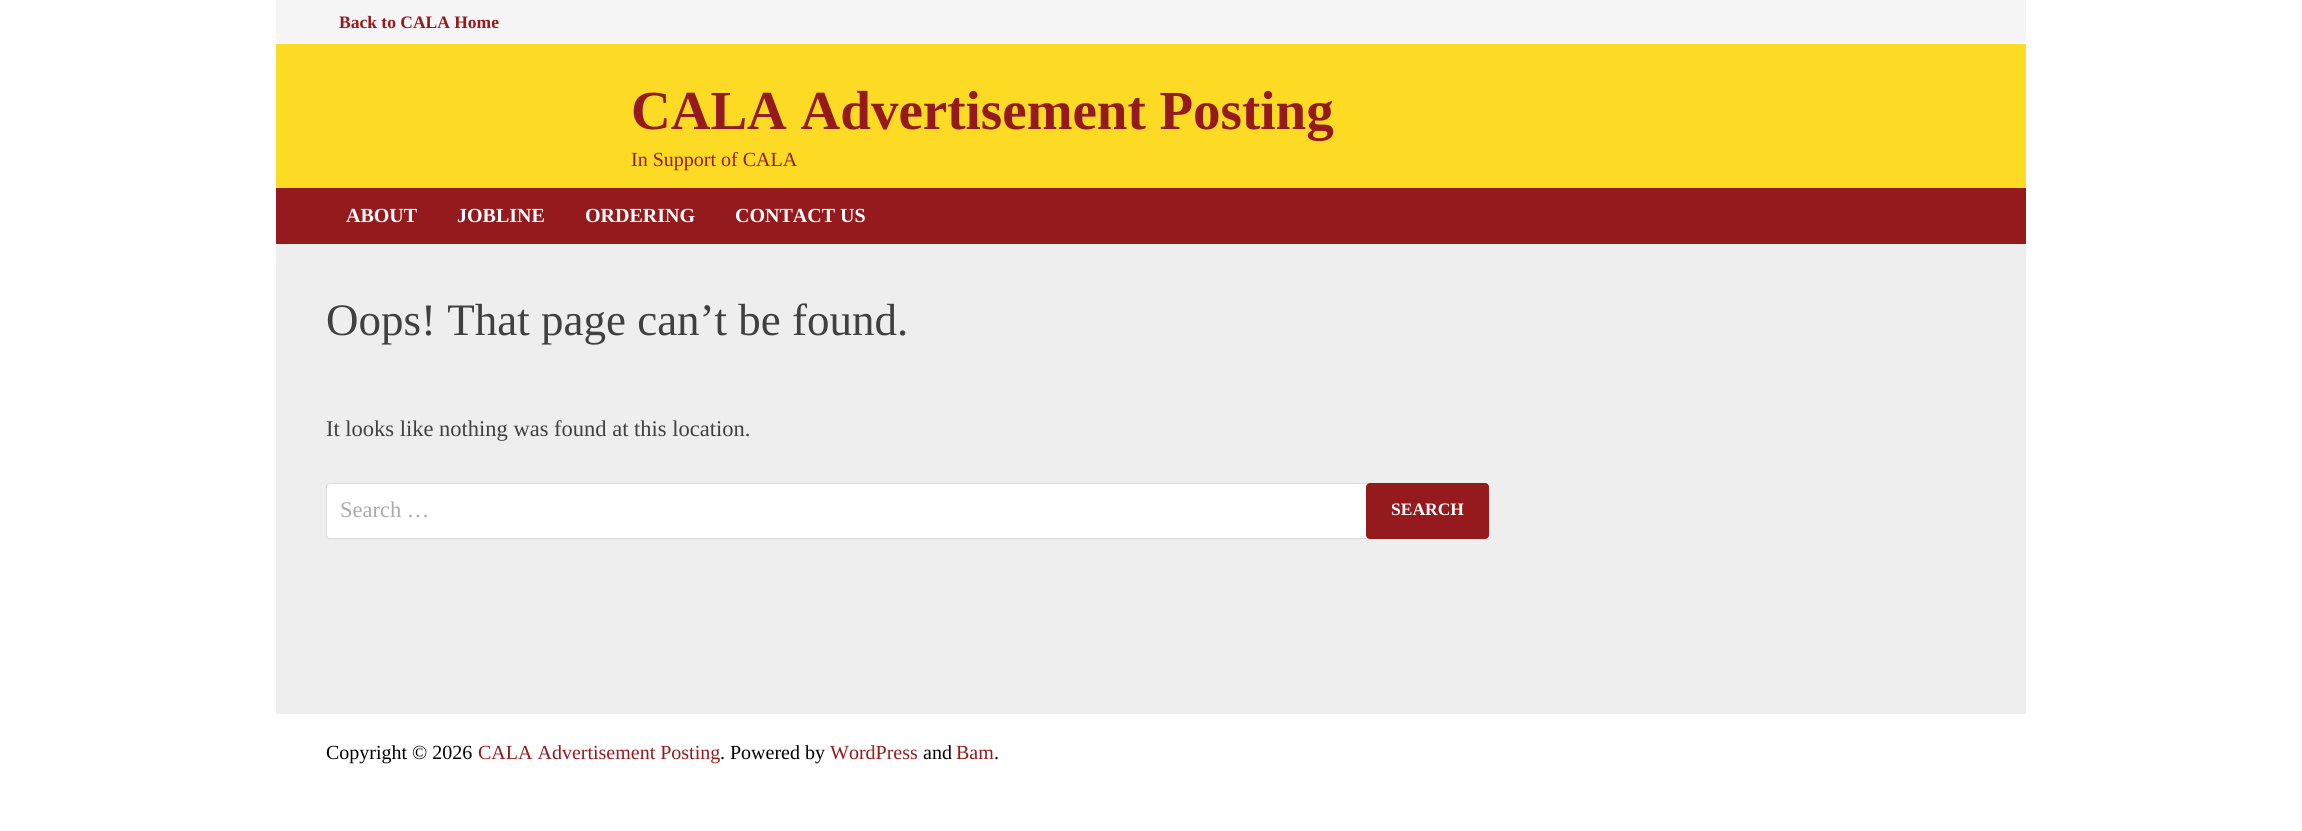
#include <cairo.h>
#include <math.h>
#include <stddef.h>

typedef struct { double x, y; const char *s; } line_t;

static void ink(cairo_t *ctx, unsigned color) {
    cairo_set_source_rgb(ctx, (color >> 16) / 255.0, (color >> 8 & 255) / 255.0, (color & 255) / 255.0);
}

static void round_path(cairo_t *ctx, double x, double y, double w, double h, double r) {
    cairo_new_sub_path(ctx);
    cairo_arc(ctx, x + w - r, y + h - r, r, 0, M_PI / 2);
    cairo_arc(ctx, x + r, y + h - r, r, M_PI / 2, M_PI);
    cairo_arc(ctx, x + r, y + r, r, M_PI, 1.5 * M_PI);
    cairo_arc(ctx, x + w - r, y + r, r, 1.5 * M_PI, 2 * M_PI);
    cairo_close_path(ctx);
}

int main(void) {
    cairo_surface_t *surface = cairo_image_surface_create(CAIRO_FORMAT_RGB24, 2302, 831);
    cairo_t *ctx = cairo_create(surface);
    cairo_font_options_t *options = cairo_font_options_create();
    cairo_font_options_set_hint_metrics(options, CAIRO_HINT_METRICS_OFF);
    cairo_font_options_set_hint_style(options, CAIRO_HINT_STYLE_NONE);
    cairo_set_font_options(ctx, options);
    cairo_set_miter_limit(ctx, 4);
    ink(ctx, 0xFFFFFF);
    cairo_paint(ctx);
    ink(ctx, 0xF5F5F5);
    cairo_rectangle(ctx, 276, 0, 1750, 43);
    cairo_fill(ctx);
    cairo_select_font_face(ctx, "Liberation Serif", CAIRO_FONT_SLANT_NORMAL, CAIRO_FONT_WEIGHT_BOLD);
    cairo_set_font_size(ctx, 17.5);
    ink(ctx, 0x941A1D);
    cairo_move_to(ctx, 339, 28);
    cairo_show_text(ctx, "Back to CALA Home");
    ink(ctx, 0xFDDA24);
    cairo_rectangle(ctx, 276, 44, 1750, 144);
    cairo_fill(ctx);
    cairo_set_font_size(ctx, 55);
    ink(ctx, 0x941A1D);
    cairo_move_to(ctx, 631, 129);
    cairo_show_text(ctx, "CALA Advertisement Posting");
    cairo_select_font_face(ctx, "Liberation Serif", CAIRO_FONT_SLANT_NORMAL, CAIRO_FONT_WEIGHT_NORMAL);
    cairo_set_font_size(ctx, 20);
    cairo_move_to(ctx, 631, 166);
    cairo_show_text(ctx, "In Support of CALA");
    cairo_rectangle(ctx, 276, 188, 1750, 56);
    cairo_fill(ctx);
    cairo_select_font_face(ctx, "Liberation Serif", CAIRO_FONT_SLANT_NORMAL, CAIRO_FONT_WEIGHT_BOLD);
    ink(ctx, 0xFFFFFF);
    {
        static const line_t items[] = {
            {346, 222, "ABOUT"},
            {457, 222, "JOBLINE"},
            {585, 222, "ORDERING"},
            {735, 222, "CONTACT US"},
        };
        for (size_t i = 0; i < sizeof items / sizeof *items; i++) {
            cairo_move_to(ctx, items[i].x, items[i].y);
            cairo_show_text(ctx, items[i].s);
        }
    }
    ink(ctx, 0xEEEEEE);
    cairo_rectangle(ctx, 276, 244, 1750, 470);
    cairo_fill(ctx);
    cairo_select_font_face(ctx, "Liberation Serif", CAIRO_FONT_SLANT_NORMAL, CAIRO_FONT_WEIGHT_NORMAL);
    cairo_set_font_size(ctx, 45);
    ink(ctx, 0x404040);
    cairo_move_to(ctx, 326, 335);
    cairo_show_text(ctx, "Oops! That page can’t be found.");
    cairo_set_font_size(ctx, 22.5);
    cairo_move_to(ctx, 326, 436);
    cairo_show_text(ctx, "It looks like nothing was found at this location.");
    ink(ctx, 0xFFFFFF);
    round_path(ctx, 326.5, 483.5, 1162, 55, 3.5);
    cairo_fill_preserve(ctx);
    ink(ctx, 0xDDDDDD);
    cairo_set_line_width(ctx, 1);
    cairo_stroke(ctx);
    ink(ctx, 0xAAAAAA);
    cairo_move_to(ctx, 340, 517);
    cairo_show_text(ctx, "Search …");
    ink(ctx, 0x941A1D);
    round_path(ctx, 1366, 483, 123, 56, 4);
    cairo_fill(ctx);
    cairo_select_font_face(ctx, "Liberation Serif", CAIRO_FONT_SLANT_NORMAL, CAIRO_FONT_WEIGHT_BOLD);
    cairo_set_font_size(ctx, 17.5);
    ink(ctx, 0xFFFFFF);
    cairo_move_to(ctx, 1391, 515);
    cairo_show_text(ctx, "SEARCH");
    cairo_select_font_face(ctx, "Liberation Serif", CAIRO_FONT_SLANT_NORMAL, CAIRO_FONT_WEIGHT_NORMAL);
    cairo_set_font_size(ctx, 20);
    ink(ctx, 0x000000);
    cairo_move_to(ctx, 326, 759);
    cairo_show_text(ctx, "Copyright © 2026");
    ink(ctx, 0x941A1D);
    cairo_move_to(ctx, 478, 759);
    cairo_show_text(ctx, "CALA Advertisement Posting");
    ink(ctx, 0x000000);
    cairo_move_to(ctx, 720, 759);
    cairo_show_text(ctx, ". Powered by");
    ink(ctx, 0x941A1D);
    cairo_move_to(ctx, 830, 759);
    cairo_show_text(ctx, "WordPress");
    ink(ctx, 0x000000);
    cairo_move_to(ctx, 923, 759);
    cairo_show_text(ctx, "and");
    ink(ctx, 0x941A1D);
    cairo_move_to(ctx, 956, 759);
    cairo_show_text(ctx, "Bam");
    ink(ctx, 0x000000);
    cairo_move_to(ctx, 994, 759);
    cairo_show_text(ctx, ".");
    cairo_surface_write_to_png(surface, "image.png");
    cairo_font_options_destroy(options);
    cairo_destroy(ctx);
    cairo_surface_destroy(surface);
    return 0;
}
